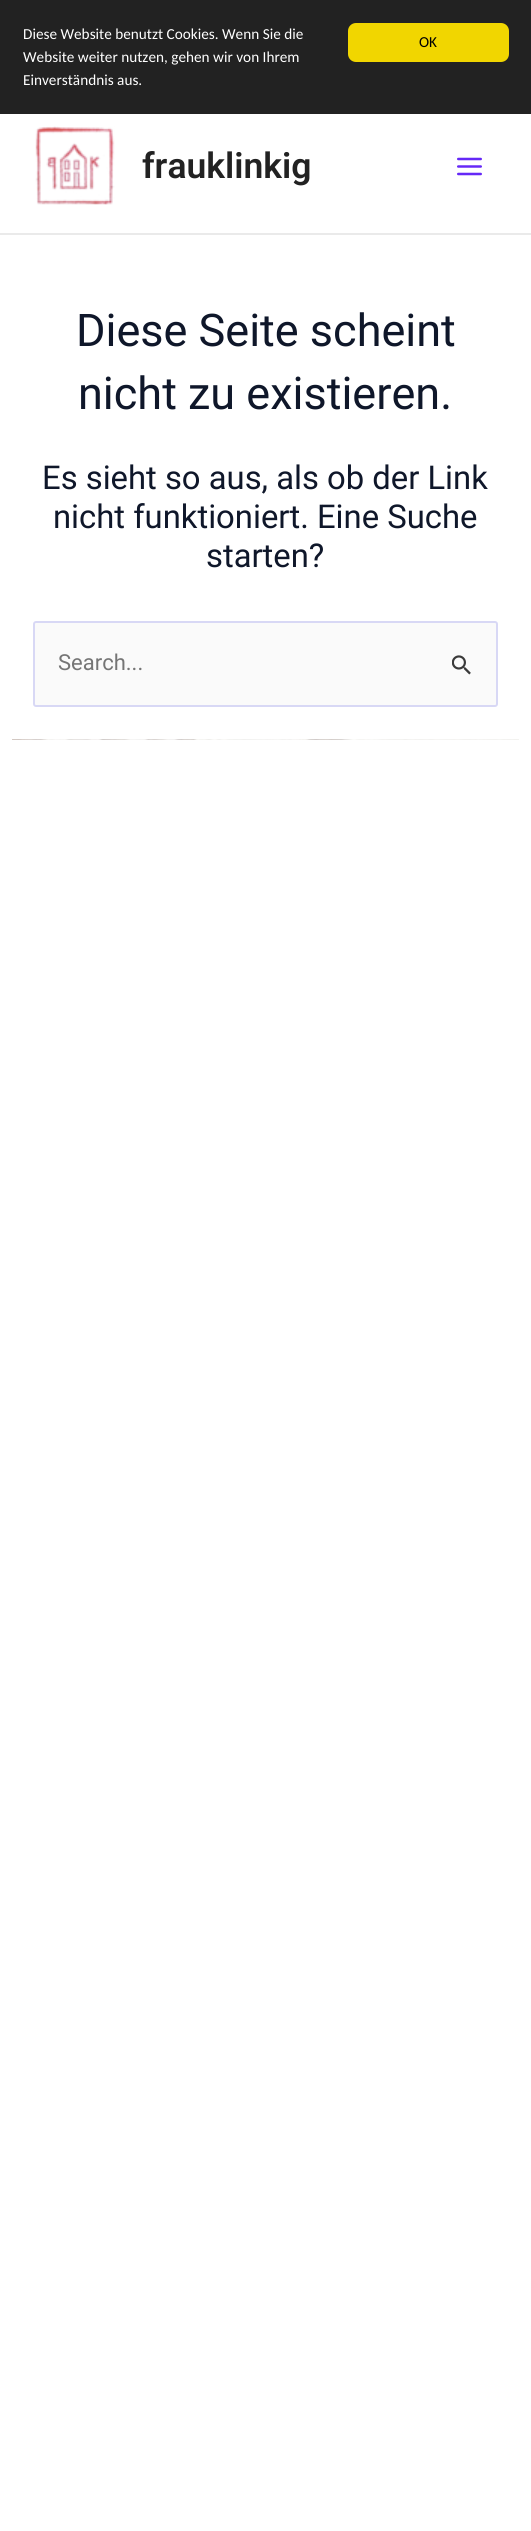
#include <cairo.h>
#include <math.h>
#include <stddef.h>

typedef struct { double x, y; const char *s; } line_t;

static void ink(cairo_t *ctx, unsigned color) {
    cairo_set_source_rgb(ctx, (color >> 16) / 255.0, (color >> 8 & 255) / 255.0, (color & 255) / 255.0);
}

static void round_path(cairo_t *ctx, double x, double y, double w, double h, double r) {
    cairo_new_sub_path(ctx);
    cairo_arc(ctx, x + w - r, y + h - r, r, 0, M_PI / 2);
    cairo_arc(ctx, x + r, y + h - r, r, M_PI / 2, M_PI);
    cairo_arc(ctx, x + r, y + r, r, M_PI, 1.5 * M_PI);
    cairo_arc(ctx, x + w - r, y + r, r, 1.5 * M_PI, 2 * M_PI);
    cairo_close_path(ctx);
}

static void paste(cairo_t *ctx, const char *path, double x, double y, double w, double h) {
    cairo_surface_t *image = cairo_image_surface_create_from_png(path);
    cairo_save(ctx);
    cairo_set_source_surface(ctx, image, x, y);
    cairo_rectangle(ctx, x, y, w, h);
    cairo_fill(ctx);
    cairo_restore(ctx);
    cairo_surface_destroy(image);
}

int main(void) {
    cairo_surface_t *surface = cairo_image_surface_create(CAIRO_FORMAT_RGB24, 531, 2531);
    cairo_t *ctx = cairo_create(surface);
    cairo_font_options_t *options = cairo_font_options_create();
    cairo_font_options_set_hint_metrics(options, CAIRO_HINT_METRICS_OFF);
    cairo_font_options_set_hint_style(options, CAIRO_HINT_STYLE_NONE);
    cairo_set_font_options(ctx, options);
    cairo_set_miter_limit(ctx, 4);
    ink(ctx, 0xFFFFFF);
    cairo_paint(ctx);
    ink(ctx, 0x222222);
    cairo_rectangle(ctx, 0, 0, 531, 114);
    cairo_fill(ctx);
    cairo_select_font_face(ctx, "Carlito", CAIRO_FONT_SLANT_NORMAL, CAIRO_FONT_WEIGHT_NORMAL);
    cairo_set_font_size(ctx, 15.25);
    ink(ctx, 0xFFFFFF);
    {
        static const line_t items[] = {
            {23, 39, "Diese Website benutzt Cookies. Wenn Sie die"},
            {23, 62, "Website weiter nutzen, gehen wir von Ihrem"},
            {23, 85, "Einverständnis aus."},
        };
        for (size_t i = 0; i < sizeof items / sizeof *items; i++) {
            cairo_move_to(ctx, items[i].x, items[i].y);
            cairo_show_text(ctx, items[i].s);
        }
    }
    ink(ctx, 0xF1D600);
    round_path(ctx, 348, 23, 161, 39, 8);
    cairo_fill(ctx);
    ink(ctx, 0x000000);
    cairo_move_to(ctx, 419, 47);
    cairo_show_text(ctx, "OK");
    ink(ctx, 0xEAEAEA);
    cairo_rectangle(ctx, 0, 233, 531, 2);
    cairo_fill(ctx);
    paste(ctx, "media/1.png", 35, 126, 80, 79);
    cairo_select_font_face(ctx, "Roboto SemiBold", CAIRO_FONT_SLANT_NORMAL, CAIRO_FONT_WEIGHT_NORMAL);
    cairo_set_font_size(ctx, 35.5);
    ink(ctx, 0x222222);
    cairo_move_to(ctx, 142, 178);
    cairo_show_text(ctx, "frauklinkig");
    paste(ctx, "media/2.png", 457, 157, 25, 19);
    paste(ctx, "media/3.png", 12, 739, 507, 1);
    cairo_select_font_face(ctx, "Roboto", CAIRO_FONT_SLANT_NORMAL, CAIRO_FONT_WEIGHT_NORMAL);
    cairo_set_font_size(ctx, 45);
    ink(ctx, 0x0F172A);
    cairo_move_to(ctx, 76, 346);
    cairo_show_text(ctx, "Diese Seite scheint");
    cairo_move_to(ctx, 78, 409);
    cairo_show_text(ctx, "nicht zu existieren.");
    cairo_set_font_size(ctx, 32.8);
    {
        static const line_t items[] = {
            {42, 489, "Es sieht so aus, als ob der Link"},
            {53, 528, "nicht funktioniert. Eine Suche"},
            {206, 567, "starten?"},
        };
        for (size_t i = 0; i < sizeof items / sizeof *items; i++) {
            cairo_move_to(ctx, items[i].x, items[i].y);
            cairo_show_text(ctx, items[i].s);
        }
    }
    ink(ctx, 0xFAFAFA);
    round_path(ctx, 34, 622, 463, 84, 2);
    cairo_fill_preserve(ctx);
    ink(ctx, 0xD8D8F5);
    cairo_stroke(ctx);
    cairo_set_font_size(ctx, 22);
    ink(ctx, 0x757575);
    cairo_move_to(ctx, 58, 670);
    cairo_show_text(ctx, "Search...");
    paste(ctx, "media/4.png", 452, 655, 19, 20);
    cairo_surface_write_to_png(surface, "image.png");
    cairo_font_options_destroy(options);
    cairo_destroy(ctx);
    cairo_surface_destroy(surface);
    return 0;
}
